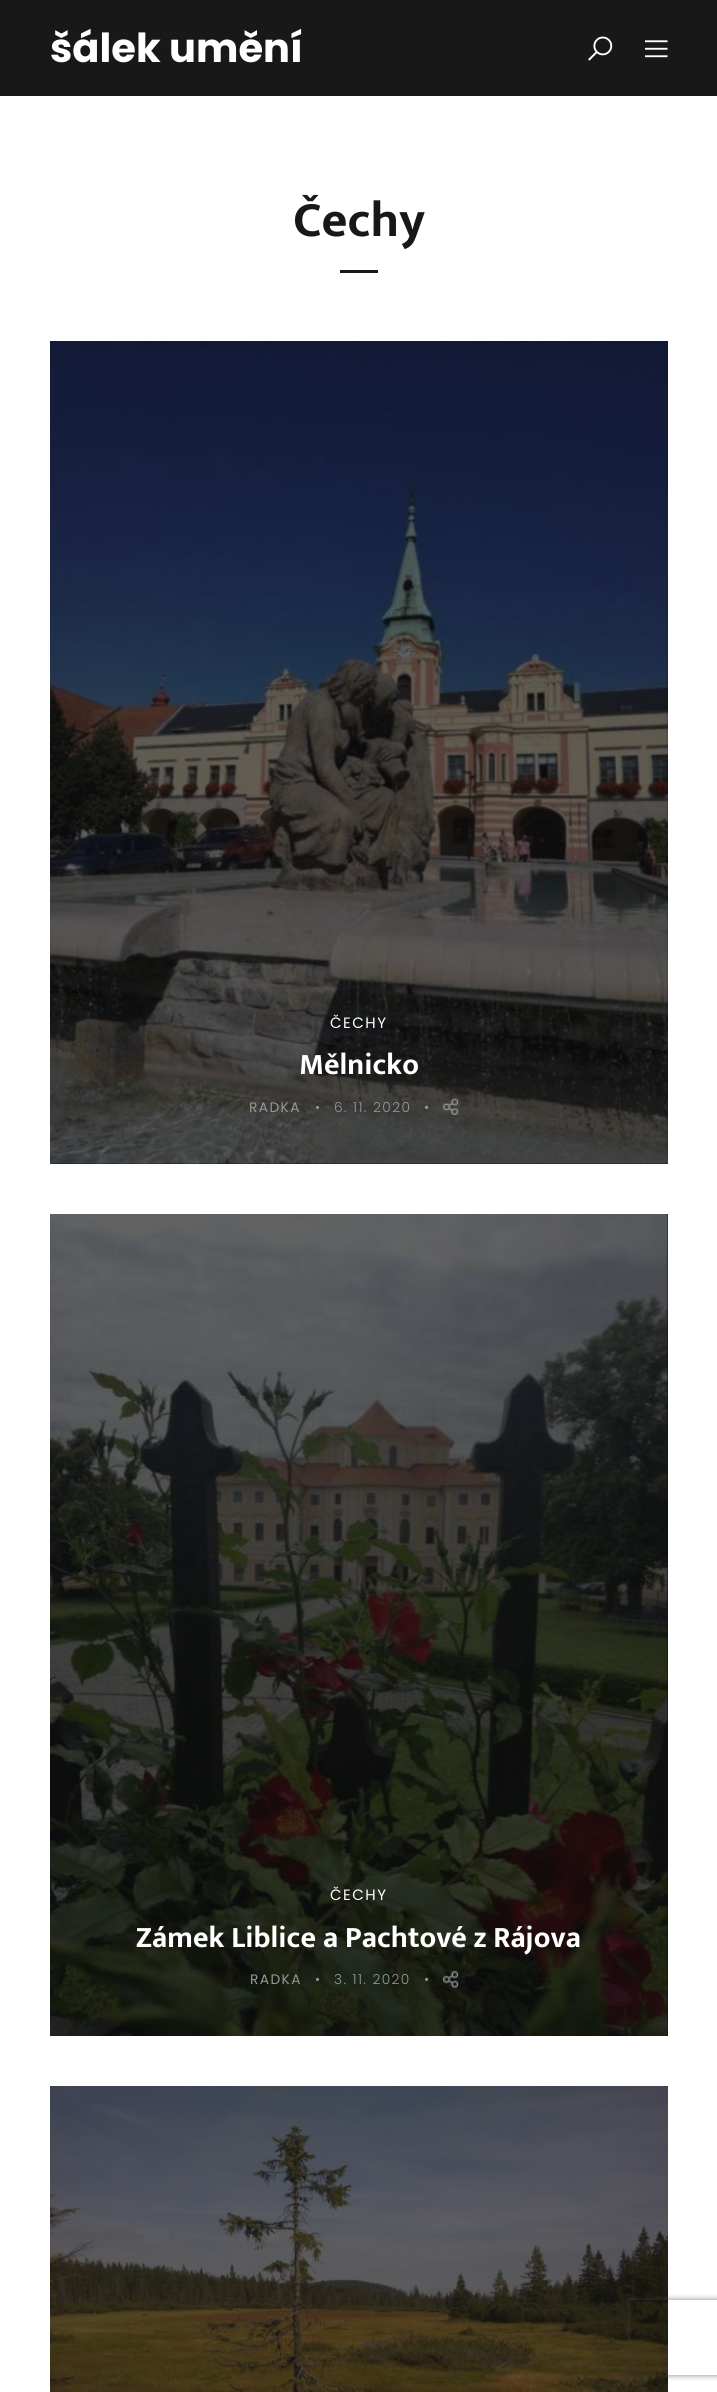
#include <cairo.h>
#include <math.h>
#include <stddef.h>

typedef struct { double x, y; const char *s; } line_t;

static void ink(cairo_t *ctx, unsigned color) {
    cairo_set_source_rgb(ctx, (color >> 16) / 255.0, (color >> 8 & 255) / 255.0, (color & 255) / 255.0);
}

static void write_spaced(cairo_t *ctx, double x, double y, const char *s, double letter, double word) {
    cairo_move_to(ctx, x, y);
    while (*s) {
        char ch[5] = {0};
        int n = 0;
        do ch[n++] = *s++; while ((*s & 0xC0) == 0x80);
        cairo_show_text(ctx, ch);
        cairo_rel_move_to(ctx, letter + word * (*ch == ' '), 0);
    }
}

static void round_path(cairo_t *ctx, double x, double y, double w, double h, double r) {
    cairo_new_sub_path(ctx);
    cairo_arc(ctx, x + w - r, y + h - r, r, 0, M_PI / 2);
    cairo_arc(ctx, x + r, y + h - r, r, M_PI / 2, M_PI);
    cairo_arc(ctx, x + r, y + r, r, M_PI, 1.5 * M_PI);
    cairo_arc(ctx, x + w - r, y + r, r, 1.5 * M_PI, 2 * M_PI);
    cairo_close_path(ctx);
}

static void blur_box(cairo_t *ctx, double x, double y, double w, double h, double r, double blur, double alpha) {
    cairo_push_group_with_content(ctx, CAIRO_CONTENT_ALPHA);
    cairo_set_operator(ctx, CAIRO_OPERATOR_SOURCE);
    for (int i = 15; i >= -15 && fmin(w, h) + blur * i / 3 > 0; i -= 2) {
        double e = blur * i / 6;
        cairo_set_source_rgba(ctx, 0, 0, 0, alpha * erfc((i - 1) / 8.5) / 2);
        round_path(ctx, x - e, y - e, w + 2 * e, h + 2 * e, fmax(0, fmin(r + e + blur * .6, fmin(w, h) / 2 + e)));
        cairo_fill(ctx);
    }
    cairo_pattern_t *soft = cairo_pop_group(ctx);
    cairo_mask(ctx, soft);
    cairo_pattern_destroy(soft);
}

static void paste(cairo_t *ctx, const char *path, double x, double y, double w, double h) {
    cairo_surface_t *image = cairo_image_surface_create_from_png(path);
    cairo_save(ctx);
    cairo_set_source_surface(ctx, image, x, y);
    cairo_rectangle(ctx, x, y, w, h);
    cairo_fill(ctx);
    cairo_restore(ctx);
    cairo_surface_destroy(image);
}

int main(void) {
    cairo_surface_t *surface = cairo_image_surface_create(CAIRO_FORMAT_RGB24, 717, 2392);
    cairo_t *ctx = cairo_create(surface);
    cairo_font_options_t *options = cairo_font_options_create();
    cairo_font_options_set_hint_metrics(options, CAIRO_HINT_METRICS_OFF);
    cairo_font_options_set_hint_style(options, CAIRO_HINT_STYLE_NONE);
    cairo_set_font_options(ctx, options);
    cairo_set_miter_limit(ctx, 4);
    ink(ctx, 0xFFFFFF);
    cairo_paint(ctx);
    ink(ctx, 0x181819);
    cairo_rectangle(ctx, 0, 0, 717, 96);
    cairo_fill(ctx);
    cairo_select_font_face(ctx, "Poppins", CAIRO_FONT_SLANT_NORMAL, CAIRO_FONT_WEIGHT_BOLD);
    cairo_set_font_size(ctx, 40);
    ink(ctx, 0xFFFFFF);
    cairo_move_to(ctx, 50, 62);
    cairo_show_text(ctx, "šálek umění");
    paste(ctx, "media/1.png", 588, 36, 25, 25);
    paste(ctx, "media/2.png", 645, 40, 23, 18);
    cairo_select_font_face(ctx, "Mukta", CAIRO_FONT_SLANT_NORMAL, CAIRO_FONT_WEIGHT_BOLD);
    cairo_set_font_size(ctx, 50);
    ink(ctx, 0x181819);
    cairo_move_to(ctx, 293, 236);
    cairo_show_text(ctx, "Čechy");
    cairo_rectangle(ctx, 340, 270, 38, 3);
    cairo_fill(ctx);
    ink(ctx, 0x121213);
    cairo_rectangle(ctx, 50, 341, 618, 823);
    cairo_fill(ctx);
    paste(ctx, "media/3.png", 50, 341, 618, 823);
    cairo_select_font_face(ctx, "Poppins", CAIRO_FONT_SLANT_NORMAL, CAIRO_FONT_WEIGHT_NORMAL);
    cairo_set_font_size(ctx, 15);
    ink(ctx, 0xFFFFFF);
    write_spaced(ctx, 330, 1028, "ČECHY", 1.5, 0);
    cairo_select_font_face(ctx, "Mukta", CAIRO_FONT_SLANT_NORMAL, CAIRO_FONT_WEIGHT_BOLD);
    cairo_set_font_size(ctx, 30);
    cairo_move_to(ctx, 299, 1074);
    cairo_show_text(ctx, "Mělnicko");
    cairo_select_font_face(ctx, "Poppins", CAIRO_FONT_SLANT_NORMAL, CAIRO_FONT_WEIGHT_NORMAL);
    cairo_set_font_size(ctx, 13.75);
    ink(ctx, 0x93989A);
    write_spaced(ctx, 249, 1112, "RADKA", 1.4, 0);
    cairo_select_font_face(ctx, "Poppins Light", CAIRO_FONT_SLANT_NORMAL, CAIRO_FONT_WEIGHT_NORMAL);
    {
        static const line_t items[] = {
            {315, 1112, "•"},
            {334, 1112, "6. 11. 2020"},
            {424, 1112, "•"},
        };
        for (size_t i = 0; i < sizeof items / sizeof *items; i++) {
            write_spaced(ctx, items[i].x, items[i].y, items[i].s, 1.4, 0);
        }
    }
    paste(ctx, "media/4.png", 443, 1098, 16, 17);
    ink(ctx, 0x121213);
    cairo_rectangle(ctx, 667, 1214, 1, 822);
    cairo_fill(ctx);
    paste(ctx, "media/5.png", 50, 1214, 618, 822);
    cairo_select_font_face(ctx, "Poppins", CAIRO_FONT_SLANT_NORMAL, CAIRO_FONT_WEIGHT_NORMAL);
    cairo_set_font_size(ctx, 15);
    ink(ctx, 0xFFFFFF);
    write_spaced(ctx, 330, 1900, "ČECHY", 1.5, 0);
    cairo_select_font_face(ctx, "Mukta", CAIRO_FONT_SLANT_NORMAL, CAIRO_FONT_WEIGHT_BOLD);
    cairo_set_font_size(ctx, 30);
    cairo_move_to(ctx, 136, 1947);
    cairo_show_text(ctx, "Zámek Liblice a Pachtové z Rájova");
    cairo_select_font_face(ctx, "Poppins", CAIRO_FONT_SLANT_NORMAL, CAIRO_FONT_WEIGHT_NORMAL);
    cairo_set_font_size(ctx, 13.75);
    ink(ctx, 0x93989A);
    write_spaced(ctx, 250, 1984, "RADKA", 1.4, 0);
    cairo_select_font_face(ctx, "Poppins Light", CAIRO_FONT_SLANT_NORMAL, CAIRO_FONT_WEIGHT_NORMAL);
    {
        static const line_t items[] = {
            {315, 1984, "•"},
            {334, 1984, "3. 11. 2020"},
            {424, 1984, "•"},
        };
        for (size_t i = 0; i < sizeof items / sizeof *items; i++) {
            write_spaced(ctx, items[i].x, items[i].y, items[i].s, 1.4, 0);
        }
    }
    paste(ctx, "media/6.png", 443, 1971, 16, 17);
    paste(ctx, "media/7.png", 50, 2086, 618, 306);
    cairo_save(ctx);
    cairo_set_fill_rule(ctx, CAIRO_FILL_RULE_EVEN_ODD);
    cairo_new_path(ctx);
    cairo_move_to(ctx, 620, 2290);
    cairo_line_to(ctx, 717, 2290);
    cairo_line_to(ctx, 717, 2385);
    cairo_line_to(ctx, 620, 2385);
    cairo_close_path(ctx);
    cairo_move_to(ctx, 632.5, 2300);
    cairo_line_to(ctx, 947.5, 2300);
    cairo_curve_to(ctx, 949, 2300, 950, 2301, 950, 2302.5);
    cairo_line_to(ctx, 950, 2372.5);
    cairo_curve_to(ctx, 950, 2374, 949, 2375, 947.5, 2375);
    cairo_line_to(ctx, 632.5, 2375);
    cairo_curve_to(ctx, 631, 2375, 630, 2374, 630, 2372.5);
    cairo_line_to(ctx, 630, 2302.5);
    cairo_curve_to(ctx, 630, 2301, 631, 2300, 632.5, 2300);
    cairo_close_path(ctx);
    cairo_clip(ctx);
    ink(ctx, 0x808080);
    blur_box(ctx, 630, 2300, 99, 75, 2.5, 3, 1);
    cairo_restore(ctx);
    cairo_set_source_rgba(ctx, 0.055, 0.055, 0.059, 0.65);
    cairo_rectangle(ctx, 50, 2086, 618, 306);
    cairo_fill(ctx);
    cairo_surface_write_to_png(surface, "image.png");
    cairo_font_options_destroy(options);
    cairo_destroy(ctx);
    cairo_surface_destroy(surface);
    return 0;
}
